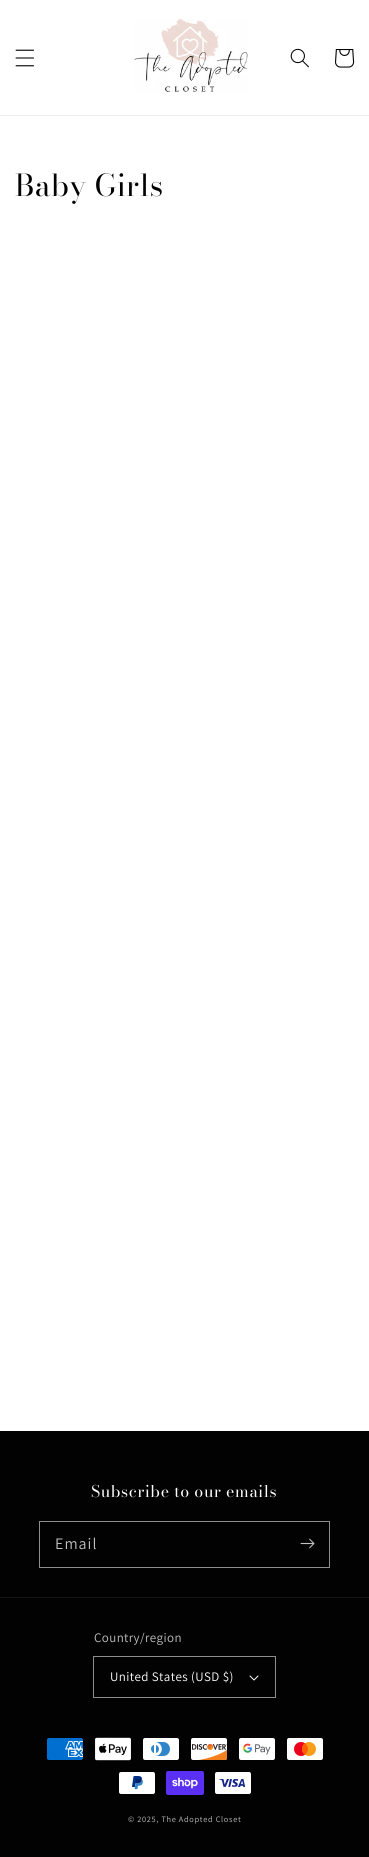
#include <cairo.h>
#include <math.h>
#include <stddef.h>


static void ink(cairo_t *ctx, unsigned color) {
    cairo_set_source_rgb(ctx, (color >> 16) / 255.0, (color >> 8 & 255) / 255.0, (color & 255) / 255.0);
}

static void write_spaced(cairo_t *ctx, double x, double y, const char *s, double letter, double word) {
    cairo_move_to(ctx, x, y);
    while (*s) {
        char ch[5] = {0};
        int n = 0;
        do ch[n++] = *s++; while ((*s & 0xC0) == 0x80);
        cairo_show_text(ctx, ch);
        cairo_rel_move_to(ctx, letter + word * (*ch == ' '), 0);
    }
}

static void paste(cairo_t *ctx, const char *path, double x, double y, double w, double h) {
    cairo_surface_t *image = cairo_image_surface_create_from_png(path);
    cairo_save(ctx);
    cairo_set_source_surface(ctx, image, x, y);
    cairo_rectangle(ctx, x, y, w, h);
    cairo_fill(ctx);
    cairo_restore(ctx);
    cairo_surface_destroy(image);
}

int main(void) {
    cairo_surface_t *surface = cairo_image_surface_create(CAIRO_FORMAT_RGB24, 369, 1857);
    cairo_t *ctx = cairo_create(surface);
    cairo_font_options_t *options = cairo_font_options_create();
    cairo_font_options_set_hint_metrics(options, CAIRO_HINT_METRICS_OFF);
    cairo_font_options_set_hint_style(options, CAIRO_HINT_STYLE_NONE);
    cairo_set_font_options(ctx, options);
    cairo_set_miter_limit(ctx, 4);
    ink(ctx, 0xFFFFFF);
    cairo_paint(ctx);
    ink(ctx, 0xEBEBEB);
    cairo_rectangle(ctx, 0, 115, 369, 1);
    cairo_fill(ctx);
    paste(ctx, "media/1.png", 15, 49, 20, 18);
    paste(ctx, "media/2.png", 134, 19, 114, 73);
    paste(ctx, "media/3.png", 290, 48, 19, 20);
    paste(ctx, "media/4.png", 335, 49, 20, 19);
    cairo_select_font_face(ctx, "Bodoni Moda", CAIRO_FONT_SLANT_NORMAL, CAIRO_FONT_WEIGHT_NORMAL);
    cairo_set_font_size(ctx, 30);
    ink(ctx, 0x020202);
    write_spaced(ctx, 15, 196, "Baby Girls", 0.6, 0);
    cairo_rectangle(ctx, 0, 1431, 369, 426);
    cairo_fill(ctx);
    cairo_select_font_face(ctx, "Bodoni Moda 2", CAIRO_FONT_SLANT_NORMAL, CAIRO_FONT_WEIGHT_NORMAL);
    cairo_set_font_size(ctx, 16);
    ink(ctx, 0xFFFFFF);
    write_spaced(ctx, 91, 1497, "Subscribe to our emails", 0.6, 0);
    cairo_rectangle(ctx, 39.5, 1521.5, 290, 46);
    ink(ctx, 0x8D8D8D);
    cairo_set_line_width(ctx, 1);
    cairo_stroke(ctx);
    cairo_select_font_face(ctx, "Assistant", CAIRO_FONT_SLANT_NORMAL, CAIRO_FONT_WEIGHT_NORMAL);
    ink(ctx, 0xC0C0C0);
    write_spaced(ctx, 55, 1549, "Email", 1, 0);
    paste(ctx, "media/5.png", 300, 1538, 15, 11);
    ink(ctx, 0x161616);
    cairo_rectangle(ctx, 0, 1597, 369, 1);
    cairo_fill(ctx);
    cairo_set_font_size(ctx, 13);
    ink(ctx, 0xC0C0C0);
    write_spaced(ctx, 94, 1642, "Country/region", 0.4, 0);
    cairo_rectangle(ctx, 93.5, 1656.5, 182, 41);
    ink(ctx, 0x8D8D8D);
    cairo_stroke(ctx);
    ink(ctx, 0xFFFFFF);
    write_spaced(ctx, 110, 1681, "United States (USD $)", 0.4, 0);
    paste(ctx, "media/6.png", 249, 1675, 10, 6);
    paste(ctx, "media/7.png", 47, 1738, 36, 22);
    paste(ctx, "media/8.png", 95, 1737, 36, 24);
    paste(ctx, "media/9.png", 143, 1738, 36, 22);
    paste(ctx, "media/10.png", 191, 1738, 37, 22);
    paste(ctx, "media/11.png", 239, 1738, 36, 22);
    paste(ctx, "media/12.png", 287, 1738, 36, 22);
    paste(ctx, "media/13.png", 119, 1772, 36, 22);
    paste(ctx, "media/14.png", 166, 1771, 38, 24);
    paste(ctx, "media/15.png", 215, 1772, 36, 22);
    cairo_set_font_size(ctx, 8.3);
    ink(ctx, 0xC0C0C0);
    write_spaced(ctx, 128, 1822, "© 2025, The Adopted Closet", 0.7, 0);
    cairo_surface_write_to_png(surface, "image.png");
    cairo_font_options_destroy(options);
    cairo_destroy(ctx);
    cairo_surface_destroy(surface);
    return 0;
}
